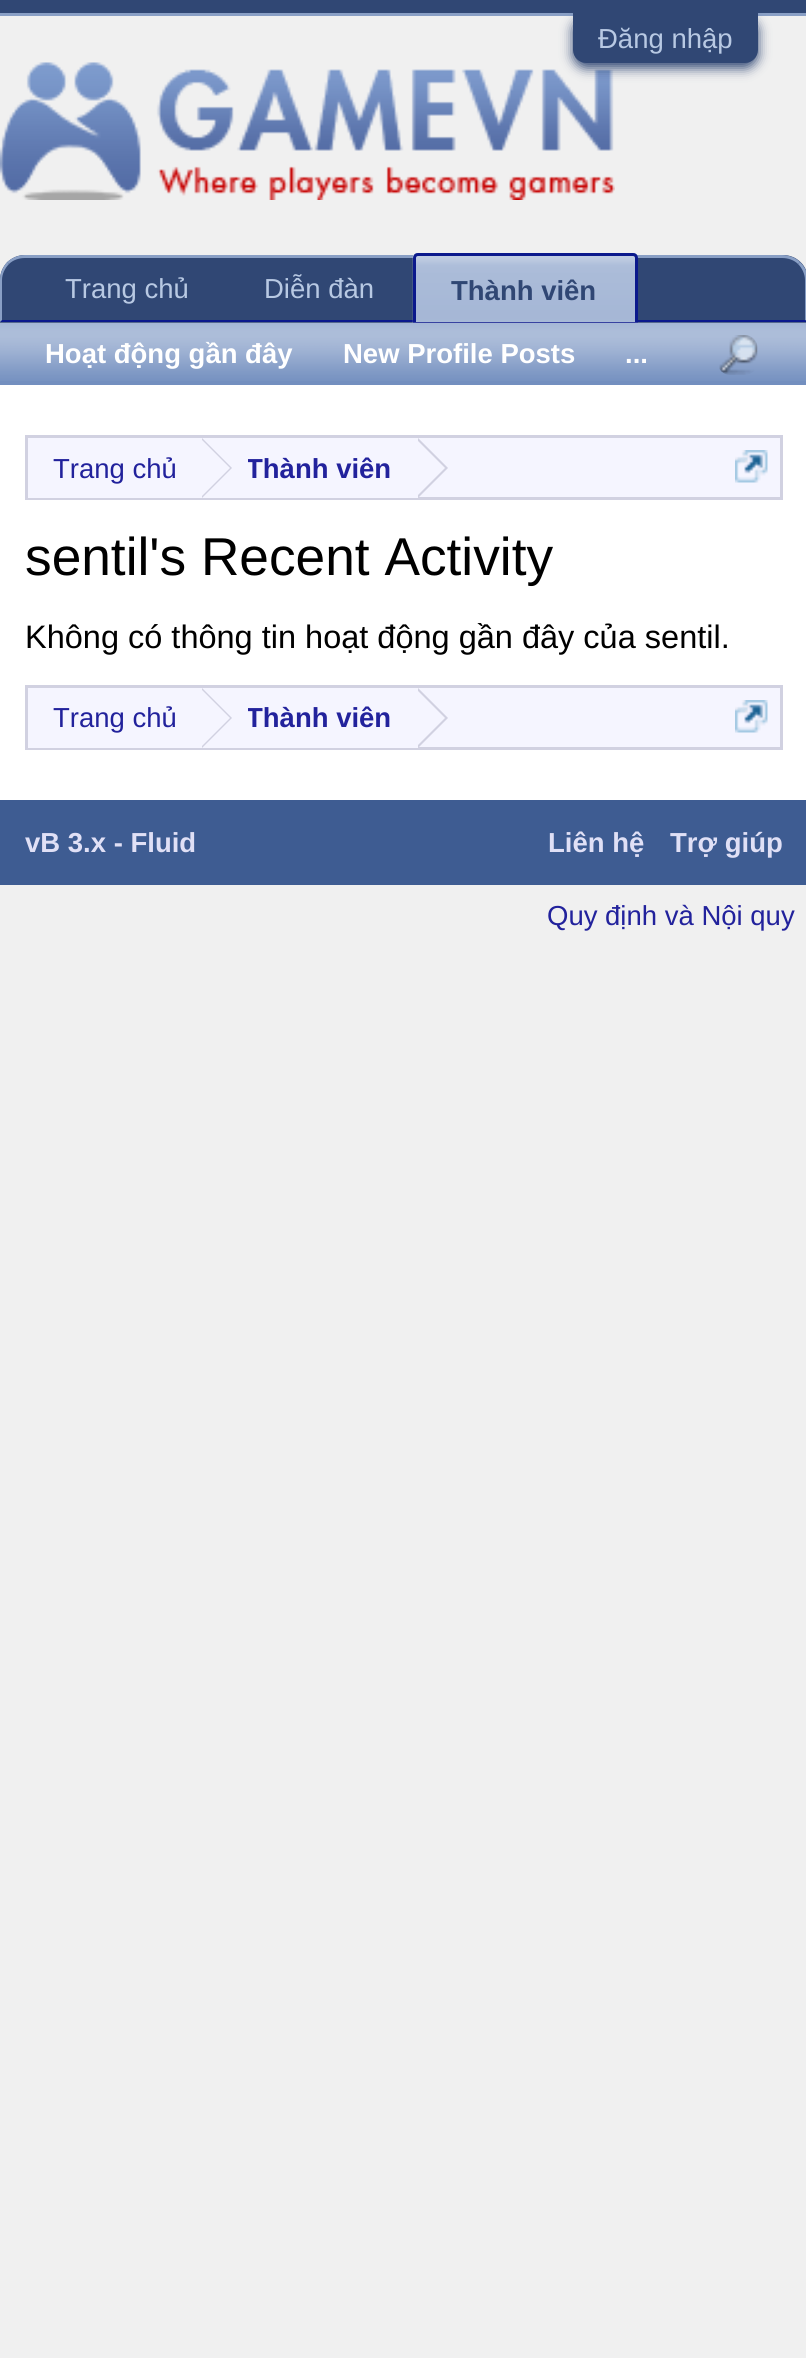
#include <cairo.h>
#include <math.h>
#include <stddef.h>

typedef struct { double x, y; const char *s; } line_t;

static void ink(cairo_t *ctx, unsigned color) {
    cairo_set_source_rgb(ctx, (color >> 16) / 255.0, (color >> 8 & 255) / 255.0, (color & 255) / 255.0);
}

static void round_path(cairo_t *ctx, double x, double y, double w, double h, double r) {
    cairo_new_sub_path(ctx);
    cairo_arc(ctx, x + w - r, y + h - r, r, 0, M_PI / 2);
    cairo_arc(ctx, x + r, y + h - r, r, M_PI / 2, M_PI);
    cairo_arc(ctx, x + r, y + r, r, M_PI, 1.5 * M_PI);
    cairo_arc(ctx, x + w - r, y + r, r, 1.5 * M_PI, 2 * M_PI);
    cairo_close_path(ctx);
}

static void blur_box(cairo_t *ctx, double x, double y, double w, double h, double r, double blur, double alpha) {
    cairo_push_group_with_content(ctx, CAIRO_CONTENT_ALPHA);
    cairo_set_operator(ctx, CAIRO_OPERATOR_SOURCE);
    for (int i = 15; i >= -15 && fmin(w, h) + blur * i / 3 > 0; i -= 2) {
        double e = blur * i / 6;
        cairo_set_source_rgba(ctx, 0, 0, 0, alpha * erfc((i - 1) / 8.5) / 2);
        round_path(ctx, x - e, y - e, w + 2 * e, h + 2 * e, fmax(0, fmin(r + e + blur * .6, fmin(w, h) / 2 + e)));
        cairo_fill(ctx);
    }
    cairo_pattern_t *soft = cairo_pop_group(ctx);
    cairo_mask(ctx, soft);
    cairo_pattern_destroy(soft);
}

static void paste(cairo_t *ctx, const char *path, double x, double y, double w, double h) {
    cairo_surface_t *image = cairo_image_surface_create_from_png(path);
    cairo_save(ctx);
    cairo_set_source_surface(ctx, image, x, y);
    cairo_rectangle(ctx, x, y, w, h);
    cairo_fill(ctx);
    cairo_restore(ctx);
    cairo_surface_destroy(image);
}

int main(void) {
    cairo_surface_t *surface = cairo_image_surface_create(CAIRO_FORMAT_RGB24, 806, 2358);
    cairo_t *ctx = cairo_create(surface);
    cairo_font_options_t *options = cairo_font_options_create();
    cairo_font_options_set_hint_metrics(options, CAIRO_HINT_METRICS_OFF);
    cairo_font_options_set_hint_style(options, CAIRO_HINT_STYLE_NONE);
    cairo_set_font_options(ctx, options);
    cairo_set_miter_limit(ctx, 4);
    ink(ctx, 0xF0F0F0);
    cairo_paint(ctx);
    ink(ctx, 0x304774);
    cairo_rectangle(ctx, 0, 0, 806, 13);
    cairo_fill(ctx);
    ink(ctx, 0x899FC5);
    cairo_rectangle(ctx, 0, 13, 806, 3);
    cairo_fill(ctx);
    paste(ctx, "media/1.png", 0, 62, 615, 138);
    ink(ctx, 0x304774);
    blur_box(ctx, 573, 18, 185, 50, 13, 6, 1);
    ink(ctx, 0x304774);
    cairo_new_path(ctx);
    cairo_move_to(ctx, 573, 13);
    cairo_line_to(ctx, 758, 13);
    cairo_line_to(ctx, 758, 50);
    cairo_curve_to(ctx, 758, 57, 752, 63, 745, 63);
    cairo_line_to(ctx, 586, 63);
    cairo_curve_to(ctx, 579, 63, 573, 57, 573, 50);
    cairo_close_path(ctx);
    cairo_fill(ctx);
    cairo_select_font_face(ctx, "Liberation Sans", CAIRO_FONT_SLANT_NORMAL, CAIRO_FONT_WEIGHT_NORMAL);
    cairo_set_font_size(ctx, 27.5);
    ink(ctx, 0xB8C9E3);
    cairo_move_to(ctx, 598, 48);
    cairo_show_text(ctx, "Đăng nhập");
    ink(ctx, 0x304774);
    cairo_new_path(ctx);
    cairo_move_to(ctx, 25, 255);
    cairo_line_to(ctx, 783, 255);
    cairo_curve_to(ctx, 797, 255, 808, 266, 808, 280);
    cairo_line_to(ctx, 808, 323);
    cairo_line_to(ctx, 0, 323);
    cairo_line_to(ctx, 0, 280);
    cairo_curve_to(ctx, 0, 266, 11, 255, 25, 255);
    cairo_close_path(ctx);
    cairo_fill(ctx);
    ink(ctx, 0x899FC5);
    cairo_new_path(ctx);
    cairo_move_to(ctx, 25, 255);
    cairo_curve_to(ctx, 18, 255, 12, 258, 7, 262);
    cairo_line_to(ctx, 9, 264);
    cairo_curve_to(ctx, 13, 260, 19, 258, 25, 258);
    cairo_line_to(ctx, 782, 258);
    cairo_curve_to(ctx, 788, 258, 794, 260, 798, 264);
    cairo_line_to(ctx, 800, 262);
    cairo_curve_to(ctx, 796, 258, 789, 255, 782, 255);
    cairo_close_path(ctx);
    cairo_fill(ctx);
    cairo_new_path(ctx);
    cairo_move_to(ctx, 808, 322);
    cairo_line_to(ctx, 805, 320);
    cairo_line_to(ctx, 805, 280);
    cairo_curve_to(ctx, 805, 274, 802, 268, 798, 264);
    cairo_line_to(ctx, 800, 262);
    cairo_curve_to(ctx, 804, 266, 806, 270, 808, 275);
    cairo_close_path(ctx);
    cairo_fill(ctx);
    ink(ctx, 0x0B198C);
    cairo_new_path(ctx);
    cairo_move_to(ctx, 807, 322);
    cairo_line_to(ctx, 0, 322);
    cairo_line_to(ctx, 2, 320);
    cairo_line_to(ctx, 805, 320);
    cairo_close_path(ctx);
    cairo_fill(ctx);
    ink(ctx, 0x899FC5);
    cairo_new_path(ctx);
    cairo_move_to(ctx, 0, 280);
    cairo_line_to(ctx, 0, 322);
    cairo_line_to(ctx, 2, 320);
    cairo_line_to(ctx, 2, 280);
    cairo_curve_to(ctx, 2, 274, 5, 268, 9, 264);
    cairo_line_to(ctx, 7, 262);
    cairo_curve_to(ctx, 3, 267, 0, 273, 0, 280);
    cairo_close_path(ctx);
    cairo_fill(ctx);
    ink(ctx, 0xB8C9E3);
    cairo_move_to(ctx, 65, 298);
    cairo_show_text(ctx, "Trang chủ");
    cairo_move_to(ctx, 264, 298);
    cairo_show_text(ctx, "Diễn đàn");
    ink(ctx, 0x738FBF);
    cairo_new_path(ctx);
    cairo_move_to(ctx, 418, 253);
    cairo_line_to(ctx, 633, 253);
    cairo_curve_to(ctx, 636, 253, 638, 255, 638, 258);
    cairo_line_to(ctx, 638, 325);
    cairo_line_to(ctx, 413, 325);
    cairo_line_to(ctx, 413, 258);
    cairo_curve_to(ctx, 413, 255, 415, 253, 418, 253);
    cairo_close_path(ctx);
    cairo_fill(ctx);
    paste(ctx, "media/2.png", 412, 255, 226, 68);
    cairo_new_path(ctx);
    cairo_move_to(ctx, 418, 254.5);
    cairo_line_to(ctx, 633, 254.5);
    cairo_curve_to(ctx, 635, 254.5, 636.5, 256, 636.5, 258);
    cairo_line_to(ctx, 636.5, 323.5);
    cairo_line_to(ctx, 414.5, 323.5);
    cairo_line_to(ctx, 414.5, 258);
    cairo_curve_to(ctx, 414.5, 256, 416, 254.5, 418, 254.5);
    cairo_close_path(ctx);
    ink(ctx, 0x0B198C);
    cairo_set_line_width(ctx, 3);
    cairo_stroke(ctx);
    cairo_select_font_face(ctx, "Liberation Sans", CAIRO_FONT_SLANT_NORMAL, CAIRO_FONT_WEIGHT_BOLD);
    ink(ctx, 0x304774);
    cairo_move_to(ctx, 451, 300);
    cairo_show_text(ctx, "Thành viên");
    ink(ctx, 0x738FBF);
    cairo_rectangle(ctx, 0, 323, 806, 62);
    cairo_fill(ctx);
    paste(ctx, "media/3.png", 0, 322, 806, 59);
    ink(ctx, 0xFFFFFF);
    {
        static const line_t items[] = {
            {45, 363, "Hoạt động gần đây"},
            {343, 363, "New Profile Posts"},
            {625, 363, "..."},
        };
        for (size_t i = 0; i < sizeof items / sizeof *items; i++) {
            cairo_move_to(ctx, items[i].x, items[i].y);
            cairo_show_text(ctx, items[i].s);
        }
    }
    paste(ctx, "media/4.png", 719, 335, 39, 40);
    cairo_rectangle(ctx, 0, 385, 806, 415);
    cairo_fill(ctx);
    ink(ctx, 0xF5F5FF);
    cairo_rectangle(ctx, 418, 438, 362, 59);
    cairo_fill(ctx);
    cairo_rectangle(ctx, 26.5, 436.5, 755, 62);
    ink(ctx, 0xD1D1E1);
    cairo_stroke(ctx);
    ink(ctx, 0xF5F5FF);
    cairo_rectangle(ctx, 28, 438, 390, 60);
    cairo_fill(ctx);
    cairo_select_font_face(ctx, "Liberation Sans", CAIRO_FONT_SLANT_NORMAL, CAIRO_FONT_WEIGHT_NORMAL);
    ink(ctx, 0x22229C);
    cairo_move_to(ctx, 53, 478);
    cairo_show_text(ctx, "Trang chủ");
    ink(ctx, 0xD1D1E1);
    cairo_new_path(ctx);
    cairo_move_to(ctx, 202, 498);
    cairo_line_to(ctx, 202, 438);
    cairo_line_to(ctx, 232, 468);
    cairo_close_path(ctx);
    cairo_fill(ctx);
    ink(ctx, 0xF5F5FF);
    cairo_new_path(ctx);
    cairo_move_to(ctx, 200, 498);
    cairo_line_to(ctx, 200, 438);
    cairo_line_to(ctx, 230, 468);
    cairo_close_path(ctx);
    cairo_fill(ctx);
    cairo_save(ctx);
    cairo_rectangle(ctx, 248, 438, 145, 60);
    cairo_clip(ctx);
    cairo_select_font_face(ctx, "Liberation Sans", CAIRO_FONT_SLANT_NORMAL, CAIRO_FONT_WEIGHT_BOLD);
    ink(ctx, 0x22229C);
    cairo_move_to(ctx, 246, 478);
    cairo_show_text(ctx, "Thành viên");
    cairo_restore(ctx);
    ink(ctx, 0xD1D1E1);
    cairo_new_path(ctx);
    cairo_move_to(ctx, 418, 498);
    cairo_line_to(ctx, 418, 438);
    cairo_line_to(ctx, 448, 468);
    cairo_close_path(ctx);
    cairo_fill(ctx);
    ink(ctx, 0xF5F5FF);
    cairo_new_path(ctx);
    cairo_move_to(ctx, 415, 498);
    cairo_line_to(ctx, 415, 438);
    cairo_line_to(ctx, 445, 468);
    cairo_close_path(ctx);
    cairo_fill(ctx);
    paste(ctx, "media/5.png", 735, 450, 33, 33);
    cairo_set_font_size(ctx, 53.25);
    ink(ctx, 0x000000);
    cairo_move_to(ctx, 25, 575);
    cairo_show_text(ctx, "sentil's Recent Activity");
    cairo_set_font_size(ctx, 32.5);
    cairo_move_to(ctx, 25, 648);
    cairo_show_text(ctx, "Không có thông tin hoạt động gần đây của sentil.");
    ink(ctx, 0xF5F5FF);
    cairo_rectangle(ctx, 418, 688, 362, 59);
    cairo_fill(ctx);
    cairo_rectangle(ctx, 26.5, 686.5, 755, 62);
    ink(ctx, 0xD1D1E1);
    cairo_stroke(ctx);
    ink(ctx, 0xF5F5FF);
    cairo_rectangle(ctx, 28, 688, 390, 60);
    cairo_fill(ctx);
    cairo_set_font_size(ctx, 27.5);
    ink(ctx, 0x22229C);
    cairo_move_to(ctx, 53, 727);
    cairo_show_text(ctx, "Trang chủ");
    ink(ctx, 0xD1D1E1);
    cairo_new_path(ctx);
    cairo_move_to(ctx, 202, 748);
    cairo_line_to(ctx, 202, 688);
    cairo_line_to(ctx, 232, 718);
    cairo_close_path(ctx);
    cairo_fill(ctx);
    ink(ctx, 0xF5F5FF);
    cairo_new_path(ctx);
    cairo_move_to(ctx, 200, 748);
    cairo_line_to(ctx, 200, 688);
    cairo_line_to(ctx, 230, 718);
    cairo_close_path(ctx);
    cairo_fill(ctx);
    cairo_save(ctx);
    cairo_rectangle(ctx, 248, 688, 145, 60);
    cairo_clip(ctx);
    cairo_select_font_face(ctx, "Liberation Sans", CAIRO_FONT_SLANT_NORMAL, CAIRO_FONT_WEIGHT_BOLD);
    ink(ctx, 0x22229C);
    cairo_move_to(ctx, 246, 727);
    cairo_show_text(ctx, "Thành viên");
    cairo_restore(ctx);
    ink(ctx, 0xD1D1E1);
    cairo_new_path(ctx);
    cairo_move_to(ctx, 418, 748);
    cairo_line_to(ctx, 418, 688);
    cairo_line_to(ctx, 448, 718);
    cairo_close_path(ctx);
    cairo_fill(ctx);
    ink(ctx, 0xF5F5FF);
    cairo_new_path(ctx);
    cairo_move_to(ctx, 415, 748);
    cairo_line_to(ctx, 415, 688);
    cairo_line_to(ctx, 445, 718);
    cairo_close_path(ctx);
    cairo_fill(ctx);
    paste(ctx, "media/5.png", 735, 700, 33, 33);
    ink(ctx, 0x3E5C92);
    cairo_rectangle(ctx, 0, 800, 806, 85);
    cairo_fill(ctx);
    cairo_select_font_face(ctx, "Liberation Sans", CAIRO_FONT_SLANT_NORMAL, CAIRO_FONT_WEIGHT_BOLD);
    ink(ctx, 0xE0E0F6);
    {
        static const line_t items[] = {
            {25, 852, "vB 3.x - Fluid"},
            {548, 852, "Liên hệ"},
            {670, 852, "Trợ giúp"},
        };
        for (size_t i = 0; i < sizeof items / sizeof *items; i++) {
            cairo_move_to(ctx, items[i].x, items[i].y);
            cairo_show_text(ctx, items[i].s);
        }
    }
    cairo_select_font_face(ctx, "Liberation Sans", CAIRO_FONT_SLANT_NORMAL, CAIRO_FONT_WEIGHT_NORMAL);
    ink(ctx, 0x22229C);
    cairo_move_to(ctx, 547, 925);
    cairo_show_text(ctx, "Quy định và Nội quy");
    cairo_surface_write_to_png(surface, "image.png");
    cairo_font_options_destroy(options);
    cairo_destroy(ctx);
    cairo_surface_destroy(surface);
    return 0;
}
